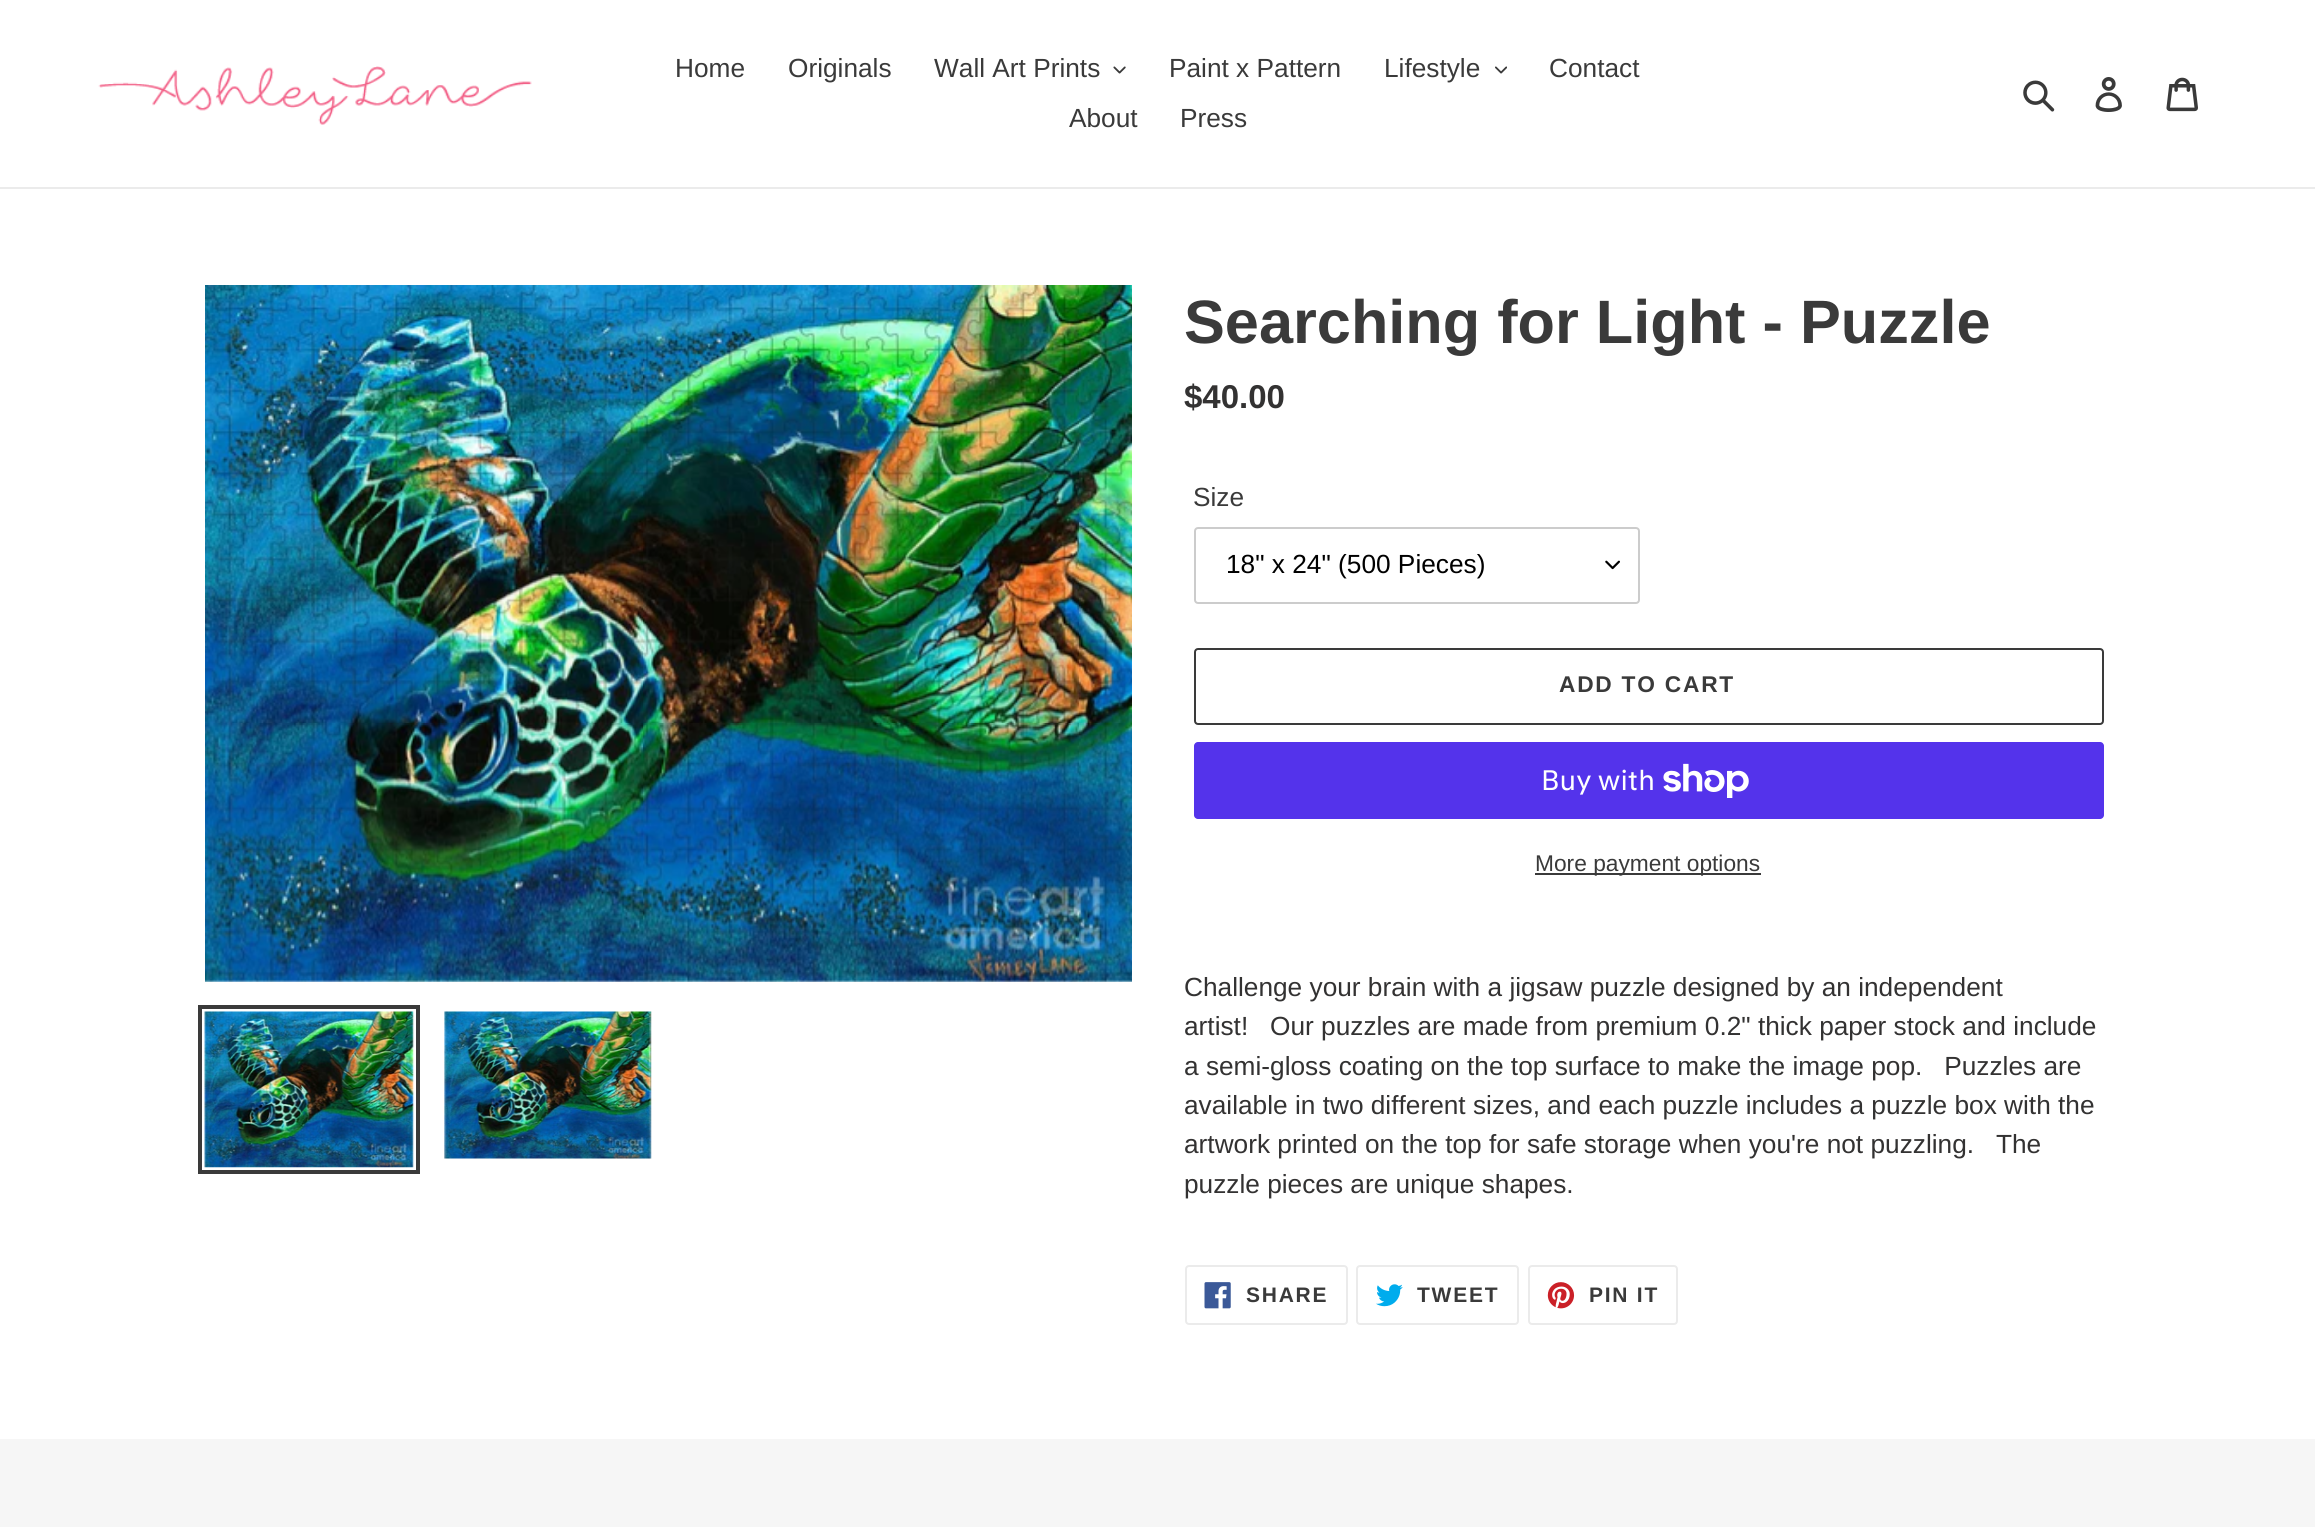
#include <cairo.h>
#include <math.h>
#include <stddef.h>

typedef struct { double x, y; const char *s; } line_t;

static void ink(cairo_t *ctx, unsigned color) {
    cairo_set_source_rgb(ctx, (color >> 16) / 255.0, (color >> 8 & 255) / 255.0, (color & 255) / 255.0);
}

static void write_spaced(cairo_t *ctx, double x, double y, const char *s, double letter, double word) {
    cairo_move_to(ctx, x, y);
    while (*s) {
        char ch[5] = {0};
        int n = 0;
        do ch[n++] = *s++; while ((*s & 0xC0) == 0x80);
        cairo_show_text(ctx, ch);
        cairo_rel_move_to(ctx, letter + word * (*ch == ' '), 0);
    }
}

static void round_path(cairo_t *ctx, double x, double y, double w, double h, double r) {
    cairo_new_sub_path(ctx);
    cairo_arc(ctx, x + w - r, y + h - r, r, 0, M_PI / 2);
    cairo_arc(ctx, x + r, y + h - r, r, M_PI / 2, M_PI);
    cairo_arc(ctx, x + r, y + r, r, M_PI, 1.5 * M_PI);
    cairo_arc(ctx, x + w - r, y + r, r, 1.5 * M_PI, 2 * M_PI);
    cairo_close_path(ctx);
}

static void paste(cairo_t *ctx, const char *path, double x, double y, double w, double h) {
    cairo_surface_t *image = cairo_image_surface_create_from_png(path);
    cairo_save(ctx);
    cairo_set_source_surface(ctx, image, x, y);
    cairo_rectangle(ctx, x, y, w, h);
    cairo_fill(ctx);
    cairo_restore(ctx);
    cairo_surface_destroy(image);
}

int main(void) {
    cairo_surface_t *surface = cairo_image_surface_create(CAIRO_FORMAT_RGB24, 2315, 1527);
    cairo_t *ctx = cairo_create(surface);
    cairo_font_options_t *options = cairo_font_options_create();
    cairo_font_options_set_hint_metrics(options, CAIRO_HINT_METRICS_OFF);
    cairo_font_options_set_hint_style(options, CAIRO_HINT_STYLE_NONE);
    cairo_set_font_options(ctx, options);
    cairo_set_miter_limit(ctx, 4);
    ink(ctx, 0xFFFFFF);
    cairo_paint(ctx);
    ink(ctx, 0xEBEBEB);
    cairo_rectangle(ctx, 0, 187, 2315, 2);
    cairo_fill(ctx);
    paste(ctx, "media/1.png", 98, 66, 434, 59);
    cairo_select_font_face(ctx, "Liberation Sans", CAIRO_FONT_SLANT_NORMAL, CAIRO_FONT_WEIGHT_NORMAL);
    cairo_set_font_size(ctx, 26.25);
    ink(ctx, 0x3A3A3A);
    {
        static const line_t items[] = {
            {675, 77, "Home"},
            {788, 77, "Originals"},
            {934, 77, "Wall Art Prints"},
        };
        for (size_t i = 0; i < sizeof items / sizeof *items; i++) {
            cairo_move_to(ctx, items[i].x, items[i].y);
            cairo_show_text(ctx, items[i].s);
        }
    }
    paste(ctx, "media/2.png", 1113, 66, 13, 8);
    cairo_move_to(ctx, 1169, 77);
    cairo_show_text(ctx, "Paint x Pattern");
    cairo_move_to(ctx, 1384, 77);
    cairo_show_text(ctx, "Lifestyle");
    paste(ctx, "media/3.png", 1495, 66, 12, 8);
    {
        static const line_t items[] = {
            {1549, 77, "Contact"},
            {1069, 127, "About"},
            {1180, 127, "Press"},
        };
        for (size_t i = 0; i < sizeof items / sizeof *items; i++) {
            cairo_move_to(ctx, items[i].x, items[i].y);
            cairo_show_text(ctx, items[i].s);
        }
    }
    paste(ctx, "media/4.png", 2023, 80, 32, 32);
    paste(ctx, "media/5.png", 2095, 77, 27, 35);
    paste(ctx, "media/6.png", 2166, 77, 32, 35);
    paste(ctx, "media/7.png", 205, 285, 927, 697);
    cairo_rectangle(ctx, 200, 1007, 218, 165);
    cairo_set_line_width(ctx, 4);
    cairo_stroke(ctx);
    paste(ctx, "media/8.png", 204, 1011, 210, 157);
    paste(ctx, "media/9.png", 444, 1011, 208, 148);
    cairo_select_font_face(ctx, "Liberation Sans", CAIRO_FONT_SLANT_NORMAL, CAIRO_FONT_WEIGHT_BOLD);
    cairo_set_font_size(ctx, 61.25);
    cairo_move_to(ctx, 1184, 343);
    cairo_show_text(ctx, "Searching for Light - Puzzle");
    cairo_set_font_size(ctx, 33);
    ink(ctx, 0x333232);
    cairo_move_to(ctx, 1184, 408);
    cairo_show_text(ctx, "$40.00");
    cairo_select_font_face(ctx, "Liberation Sans", CAIRO_FONT_SLANT_NORMAL, CAIRO_FONT_WEIGHT_NORMAL);
    cairo_set_font_size(ctx, 26.25);
    ink(ctx, 0x3A3A3A);
    cairo_move_to(ctx, 1193, 506);
    cairo_show_text(ctx, "Size");
    paste(ctx, "media/10.png", 1605, 560, 15, 10);
    round_path(ctx, 1195, 528, 444, 75, 3);
    ink(ctx, 0xCCCCCC);
    cairo_set_line_width(ctx, 2);
    cairo_stroke(ctx);
    ink(ctx, 0x000000);
    cairo_move_to(ctx, 1226, 573);
    cairo_show_text(ctx, "18\" x 24\" (500 Pieces)");
    round_path(ctx, 1195, 649, 908, 75, 3);
    ink(ctx, 0x3A3A3A);
    cairo_stroke(ctx);
    cairo_select_font_face(ctx, "Liberation Sans", CAIRO_FONT_SLANT_NORMAL, CAIRO_FONT_WEIGHT_BOLD);
    cairo_set_font_size(ctx, 22.75);
    write_spaced(ctx, 1559, 692, "ADD TO CART", 1.75, 0);
    ink(ctx, 0x5433EB);
    round_path(ctx, 1194, 742, 910, 77, 4);
    cairo_fill(ctx);
    cairo_select_font_face(ctx, "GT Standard", CAIRO_FONT_SLANT_NORMAL, CAIRO_FONT_WEIGHT_NORMAL);
    cairo_set_font_size(ctx, 28);
    ink(ctx, 0xFFFFFF);
    cairo_move_to(ctx, 1541, 790);
    cairo_show_text(ctx, "Buy with");
    paste(ctx, "media/11.png", 1663, 763, 86, 35);
    ink(ctx, 0x3A3A3A);
    cairo_rectangle(ctx, 1535, 873, 226, 2);
    cairo_fill(ctx);
    cairo_select_font_face(ctx, "Liberation Sans", CAIRO_FONT_SLANT_NORMAL, CAIRO_FONT_WEIGHT_NORMAL);
    cairo_set_font_size(ctx, 22.75);
    cairo_move_to(ctx, 1535, 871);
    cairo_show_text(ctx, "More payment options");
    cairo_set_font_size(ctx, 26.25);
    ink(ctx, 0x333232);
    {
        static const line_t items[] = {
            {1184, 996, "Challenge your brain with a jigsaw puzzle designed by an independent"},
            {1184, 1035, "artist!   Our puzzles are made from premium 0.2\" thick paper stock and include"},
            {1184, 1075, "a semi-gloss coating on the top surface to make the image pop.   Puzzles are"},
            {1184, 1114, "available in two different sizes, and each puzzle includes a puzzle box with the"},
            {1184, 1153, "artwork printed on the top for safe storage when you're not puzzling.   The"},
            {1184, 1193, "puzzle pieces are unique shapes."},
        };
        for (size_t i = 0; i < sizeof items / sizeof *items; i++) {
            cairo_move_to(ctx, items[i].x, items[i].y);
            cairo_show_text(ctx, items[i].s);
        }
    }
    round_path(ctx, 1186, 1266, 161, 58, 3);
    ink(ctx, 0xEBEBEB);
    cairo_stroke(ctx);
    paste(ctx, "media/12.png", 1204, 1282, 27, 27);
    cairo_select_font_face(ctx, "Liberation Sans", CAIRO_FONT_SLANT_NORMAL, CAIRO_FONT_WEIGHT_BOLD);
    cairo_set_font_size(ctx, 21);
    ink(ctx, 0x3A3A3A);
    write_spaced(ctx, 1246, 1302, "SHARE", 1.75, 0);
    round_path(ctx, 1357, 1266, 161, 58, 3);
    ink(ctx, 0xEBEBEB);
    cairo_stroke(ctx);
    paste(ctx, "media/13.png", 1376, 1284, 27, 23);
    ink(ctx, 0x3A3A3A);
    write_spaced(ctx, 1417, 1302, "TWEET", 1.75, 0);
    round_path(ctx, 1529, 1266, 148, 58, 3);
    ink(ctx, 0xEBEBEB);
    cairo_stroke(ctx);
    paste(ctx, "media/14.png", 1547, 1282, 28, 27);
    ink(ctx, 0x3A3A3A);
    write_spaced(ctx, 1589, 1302, "PIN IT", 1.75, 0);
    ink(ctx, 0xF6F6F6);
    cairo_rectangle(ctx, 0, 1439, 2315, 88);
    cairo_fill(ctx);
    cairo_surface_write_to_png(surface, "image.png");
    cairo_font_options_destroy(options);
    cairo_destroy(ctx);
    cairo_surface_destroy(surface);
    return 0;
}
